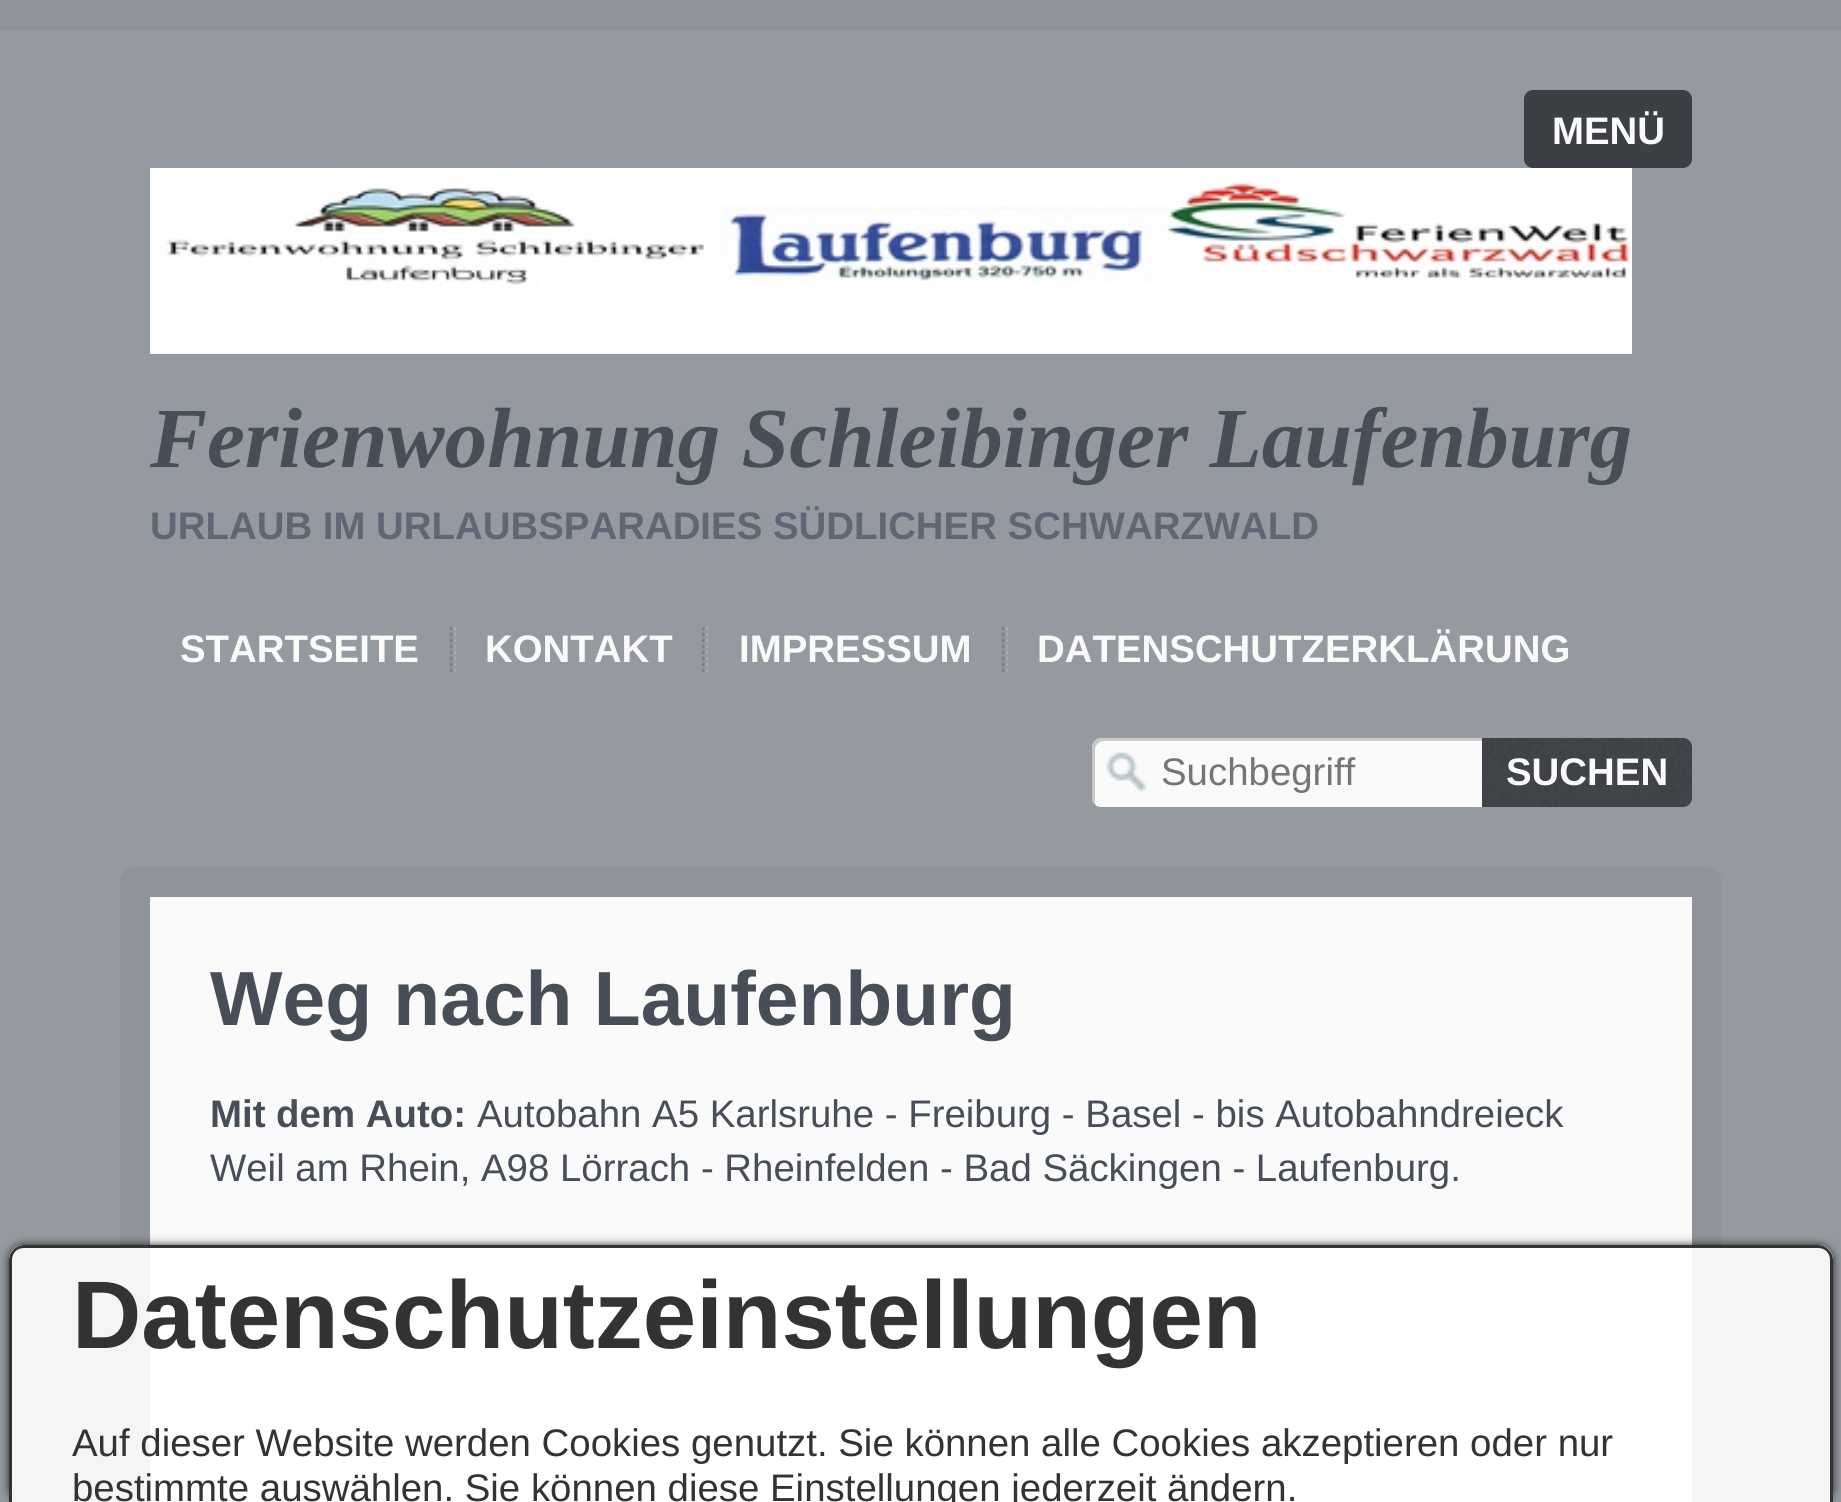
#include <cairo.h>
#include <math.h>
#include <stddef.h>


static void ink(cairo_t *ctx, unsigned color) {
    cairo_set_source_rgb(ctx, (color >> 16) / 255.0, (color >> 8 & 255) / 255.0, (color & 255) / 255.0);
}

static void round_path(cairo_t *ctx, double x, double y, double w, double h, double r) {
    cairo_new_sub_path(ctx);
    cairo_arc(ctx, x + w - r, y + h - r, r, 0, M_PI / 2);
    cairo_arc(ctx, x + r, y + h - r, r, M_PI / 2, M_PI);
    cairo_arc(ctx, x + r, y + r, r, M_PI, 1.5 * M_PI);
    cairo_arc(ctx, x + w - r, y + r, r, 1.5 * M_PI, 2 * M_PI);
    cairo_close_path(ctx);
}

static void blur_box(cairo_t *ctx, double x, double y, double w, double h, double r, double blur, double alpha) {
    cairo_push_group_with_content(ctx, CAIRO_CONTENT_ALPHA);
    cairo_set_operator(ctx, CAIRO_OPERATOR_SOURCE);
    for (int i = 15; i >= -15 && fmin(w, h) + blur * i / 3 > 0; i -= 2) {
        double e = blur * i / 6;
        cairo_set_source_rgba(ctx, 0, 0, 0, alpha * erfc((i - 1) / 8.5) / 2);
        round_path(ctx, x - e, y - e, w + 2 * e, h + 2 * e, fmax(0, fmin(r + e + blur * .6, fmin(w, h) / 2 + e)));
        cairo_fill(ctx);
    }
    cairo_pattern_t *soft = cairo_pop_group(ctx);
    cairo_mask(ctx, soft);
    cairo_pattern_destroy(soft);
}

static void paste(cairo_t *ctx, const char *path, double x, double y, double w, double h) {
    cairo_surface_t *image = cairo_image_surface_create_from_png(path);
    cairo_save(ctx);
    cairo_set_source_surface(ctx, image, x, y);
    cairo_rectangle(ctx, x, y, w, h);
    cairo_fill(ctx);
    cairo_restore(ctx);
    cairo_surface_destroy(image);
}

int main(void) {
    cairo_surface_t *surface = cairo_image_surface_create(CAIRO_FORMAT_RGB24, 1841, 1502);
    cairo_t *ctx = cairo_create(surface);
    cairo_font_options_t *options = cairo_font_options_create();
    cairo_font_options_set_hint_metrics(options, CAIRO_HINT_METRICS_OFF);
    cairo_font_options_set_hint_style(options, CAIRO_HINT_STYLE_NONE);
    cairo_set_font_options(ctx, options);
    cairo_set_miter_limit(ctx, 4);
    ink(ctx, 0x959AA0);
    cairo_paint(ctx);
    ink(ctx, 0x8F949A);
    cairo_rectangle(ctx, 0, 0, 1841, 30);
    cairo_fill(ctx);
    ink(ctx, 0x3C3F43);
    round_path(ctx, 1525.5, 91.5, 165, 75, 7.5);
    cairo_fill_preserve(ctx);
    cairo_set_line_width(ctx, 3);
    cairo_stroke(ctx);
    cairo_select_font_face(ctx, "Liberation Sans", CAIRO_FONT_SLANT_NORMAL, CAIRO_FONT_WEIGHT_BOLD);
    cairo_set_font_size(ctx, 38.4);
    ink(ctx, 0xFAFAFA);
    cairo_move_to(ctx, 1552, 144);
    cairo_show_text(ctx, "MENÜ");
    paste(ctx, "media/1.png", 150, 168, 1482, 186);
    cairo_select_font_face(ctx, "Liberation Serif", CAIRO_FONT_SLANT_ITALIC, CAIRO_FONT_WEIGHT_BOLD);
    cairo_set_font_size(ctx, 85.5);
    ink(ctx, 0x474E58);
    cairo_move_to(ctx, 150, 467);
    cairo_show_text(ctx, "Ferienwohnung Schleibinger Laufenburg");
    cairo_select_font_face(ctx, "Liberation Sans", CAIRO_FONT_SLANT_NORMAL, CAIRO_FONT_WEIGHT_BOLD);
    cairo_set_font_size(ctx, 38.4);
    ink(ctx, 0x5E6774);
    cairo_move_to(ctx, 150, 539);
    cairo_show_text(ctx, "URLAUB IM URLAUBSPARADIES SÜDLICHER SCHWARZWALD");
    ink(ctx, 0xFAFAFA);
    cairo_move_to(ctx, 180, 662);
    cairo_show_text(ctx, "STARTSEITE");
    paste(ctx, "media/2.png", 450, 627, 6, 45);
    cairo_move_to(ctx, 485, 662);
    cairo_show_text(ctx, "KONTAKT");
    paste(ctx, "media/2.png", 702, 627, 6, 45);
    cairo_move_to(ctx, 739, 662);
    cairo_show_text(ctx, "IMPRESSUM");
    paste(ctx, "media/2.png", 1002, 627, 6, 45);
    cairo_move_to(ctx, 1037, 662);
    cairo_show_text(ctx, "DATENSCHUTZERKLÄRUNG");
    cairo_new_path(ctx);
    cairo_move_to(ctx, 1101, 738);
    cairo_line_to(ctx, 1482, 738);
    cairo_line_to(ctx, 1482, 807);
    cairo_line_to(ctx, 1101, 807);
    cairo_curve_to(ctx, 1096, 807, 1092, 803, 1092, 798);
    cairo_line_to(ctx, 1092, 747);
    cairo_curve_to(ctx, 1092, 742, 1096, 738, 1101, 738);
    cairo_close_path(ctx);
    cairo_fill(ctx);
    paste(ctx, "media/3.png", 1106, 752, 41, 41);
    cairo_set_source_rgba(ctx, 0, 0, 0, 0.2);
    cairo_new_path(ctx);
    cairo_move_to(ctx, 1104, 741);
    cairo_line_to(ctx, 1482, 741);
    cairo_line_to(ctx, 1482, 738);
    cairo_line_to(ctx, 1101, 738);
    cairo_curve_to(ctx, 1096, 738, 1092, 742, 1092, 747);
    cairo_line_to(ctx, 1092, 798);
    cairo_curve_to(ctx, 1092, 801, 1094, 804, 1096, 806);
    cairo_curve_to(ctx, 1095, 804, 1095, 803, 1095, 801);
    cairo_line_to(ctx, 1095, 750);
    cairo_curve_to(ctx, 1095, 745, 1099, 741, 1104, 741);
    cairo_close_path(ctx);
    cairo_fill(ctx);
    cairo_select_font_face(ctx, "Liberation Sans", CAIRO_FONT_SLANT_NORMAL, CAIRO_FONT_WEIGHT_NORMAL);
    ink(ctx, 0x757575);
    cairo_move_to(ctx, 1161, 785);
    cairo_show_text(ctx, "Suchbegriff");
    ink(ctx, 0x3C3F43);
    cairo_new_path(ctx);
    cairo_move_to(ctx, 1482, 738);
    cairo_line_to(ctx, 1683, 738);
    cairo_curve_to(ctx, 1688, 738, 1692, 742, 1692, 747);
    cairo_line_to(ctx, 1692, 798);
    cairo_curve_to(ctx, 1692, 803, 1688, 807, 1683, 807);
    cairo_line_to(ctx, 1482, 807);
    cairo_close_path(ctx);
    cairo_fill(ctx);
    paste(ctx, "media/4.png", 1482, 738, 210, 69);
    cairo_select_font_face(ctx, "Liberation Sans", CAIRO_FONT_SLANT_NORMAL, CAIRO_FONT_WEIGHT_BOLD);
    ink(ctx, 0xFAFAFA);
    cairo_move_to(ctx, 1506, 785);
    cairo_show_text(ctx, "SUCHEN");
    paste(ctx, "media/5.png", 120, 867, 1602, 635);
    cairo_rectangle(ctx, 150, 897, 1542, 605);
    cairo_fill(ctx);
    cairo_set_font_size(ctx, 76.75);
    ink(ctx, 0x474E58);
    cairo_move_to(ctx, 210, 1025);
    cairo_show_text(ctx, "Weg nach Laufenburg");
    cairo_set_font_size(ctx, 38.4);
    cairo_move_to(ctx, 210, 1127);
    cairo_show_text(ctx, "Mit dem Auto:");
    cairo_select_font_face(ctx, "Liberation Sans", CAIRO_FONT_SLANT_NORMAL, CAIRO_FONT_WEIGHT_NORMAL);
    cairo_move_to(ctx, 477, 1127);
    cairo_show_text(ctx, "Autobahn A5 Karlsruhe - Freiburg - Basel - bis Autobahndreieck");
    cairo_move_to(ctx, 210, 1181);
    cairo_show_text(ctx, "Weil am Rhein, A98 Lörrach - Rheinfelden - Bad Säckingen - Laufenburg.");
    cairo_save(ctx);
    cairo_set_fill_rule(ctx, CAIRO_FILL_RULE_EVEN_ODD);
    cairo_new_path(ctx);
    cairo_move_to(ctx, 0, 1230);
    cairo_line_to(ctx, 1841, 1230);
    cairo_line_to(ctx, 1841, 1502);
    cairo_line_to(ctx, 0, 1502);
    cairo_close_path(ctx);
    cairo_move_to(ctx, 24, 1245);
    cairo_line_to(ctx, 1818, 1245);
    cairo_curve_to(ctx, 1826.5, 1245, 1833, 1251.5, 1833, 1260);
    cairo_line_to(ctx, 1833, 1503);
    cairo_line_to(ctx, 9, 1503);
    cairo_line_to(ctx, 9, 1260);
    cairo_curve_to(ctx, 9, 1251.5, 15.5, 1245, 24, 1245);
    cairo_close_path(ctx);
    cairo_clip(ctx);
    ink(ctx, 0x000000);
    blur_box(ctx, 9, 1245, 1824, 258, 15, 4.5, 0.8);
    cairo_restore(ctx);
    cairo_set_source_rgba(ctx, 1, 1, 1, 0.9);
    cairo_new_path(ctx);
    cairo_move_to(ctx, 24, 1245);
    cairo_line_to(ctx, 1818, 1245);
    cairo_curve_to(ctx, 1826.5, 1245, 1833, 1251.5, 1833, 1260);
    cairo_line_to(ctx, 1833, 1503);
    cairo_line_to(ctx, 9, 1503);
    cairo_line_to(ctx, 9, 1260);
    cairo_curve_to(ctx, 9, 1251.5, 15.5, 1245, 24, 1245);
    cairo_close_path(ctx);
    cairo_fill(ctx);
    ink(ctx, 0x333333);
    cairo_set_fill_rule(ctx, CAIRO_FILL_RULE_EVEN_ODD);
    cairo_new_path(ctx);
    cairo_move_to(ctx, 24, 1245);
    cairo_line_to(ctx, 1818, 1245);
    cairo_curve_to(ctx, 1826, 1245, 1833, 1252, 1833, 1260);
    cairo_line_to(ctx, 1833, 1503);
    cairo_line_to(ctx, 9, 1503);
    cairo_line_to(ctx, 9, 1260);
    cairo_curve_to(ctx, 9, 1252, 16, 1245, 24, 1245);
    cairo_close_path(ctx);
    cairo_move_to(ctx, 24, 1248);
    cairo_line_to(ctx, 1818, 1248);
    cairo_curve_to(ctx, 1825, 1248, 1830, 1253, 1830, 1260);
    cairo_line_to(ctx, 1830, 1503);
    cairo_line_to(ctx, 12, 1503);
    cairo_line_to(ctx, 12, 1260);
    cairo_curve_to(ctx, 12, 1253, 17, 1248, 24, 1248);
    cairo_close_path(ctx);
    cairo_fill(ctx);
    cairo_select_font_face(ctx, "Liberation Sans", CAIRO_FONT_SLANT_NORMAL, CAIRO_FONT_WEIGHT_BOLD);
    cairo_set_font_size(ctx, 96);
    cairo_move_to(ctx, 72, 1348);
    cairo_show_text(ctx, "Datenschutzeinstellungen");
    cairo_select_font_face(ctx, "Liberation Sans", CAIRO_FONT_SLANT_NORMAL, CAIRO_FONT_WEIGHT_NORMAL);
    cairo_set_font_size(ctx, 38.4);
    cairo_move_to(ctx, 72, 1456);
    cairo_show_text(ctx, "Auf dieser Website werden Cookies genutzt. Sie können alle Cookies akzeptieren oder nur");
    cairo_move_to(ctx, 72, 1501);
    cairo_show_text(ctx, "bestimmte auswählen. Sie können diese Einstellungen jederzeit ändern.");
    cairo_surface_write_to_png(surface, "image.png");
    cairo_font_options_destroy(options);
    cairo_destroy(ctx);
    cairo_surface_destroy(surface);
    return 0;
}
